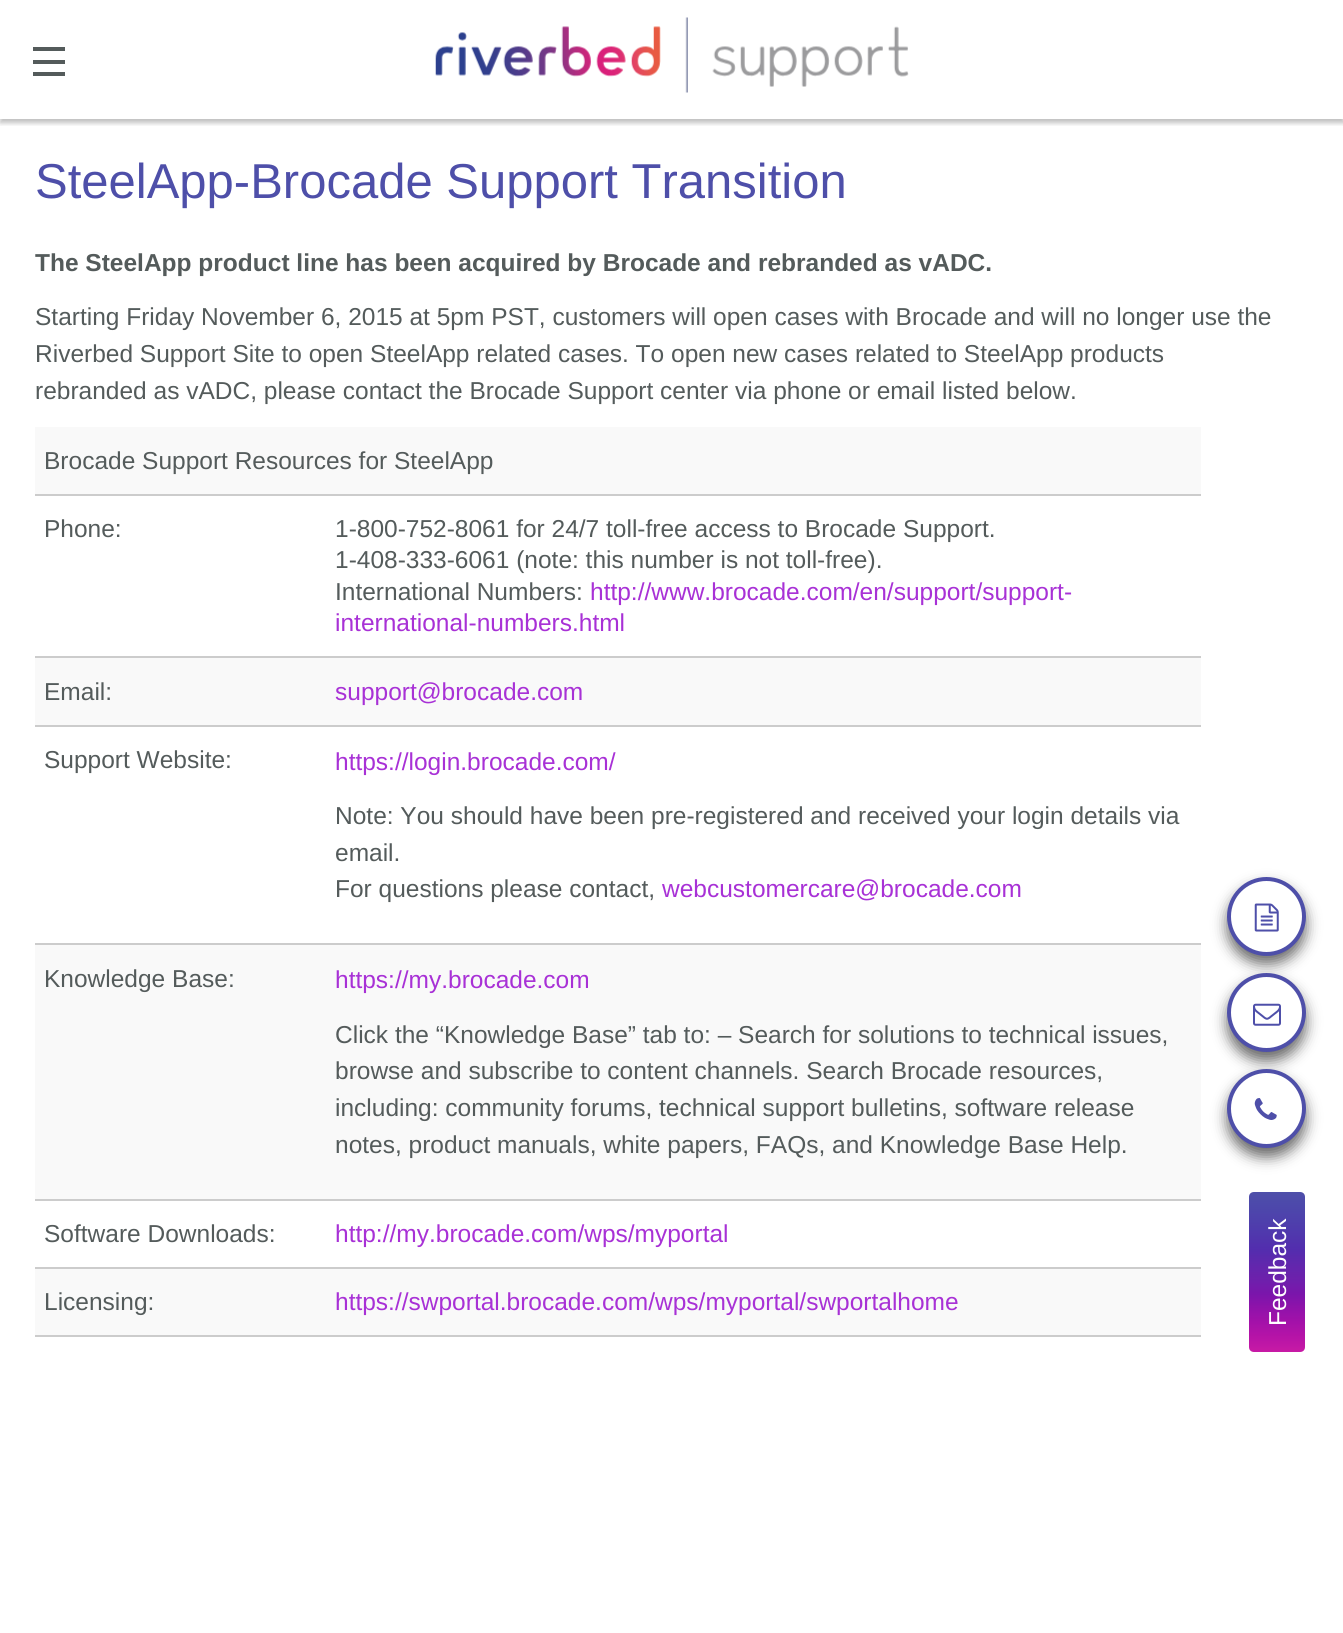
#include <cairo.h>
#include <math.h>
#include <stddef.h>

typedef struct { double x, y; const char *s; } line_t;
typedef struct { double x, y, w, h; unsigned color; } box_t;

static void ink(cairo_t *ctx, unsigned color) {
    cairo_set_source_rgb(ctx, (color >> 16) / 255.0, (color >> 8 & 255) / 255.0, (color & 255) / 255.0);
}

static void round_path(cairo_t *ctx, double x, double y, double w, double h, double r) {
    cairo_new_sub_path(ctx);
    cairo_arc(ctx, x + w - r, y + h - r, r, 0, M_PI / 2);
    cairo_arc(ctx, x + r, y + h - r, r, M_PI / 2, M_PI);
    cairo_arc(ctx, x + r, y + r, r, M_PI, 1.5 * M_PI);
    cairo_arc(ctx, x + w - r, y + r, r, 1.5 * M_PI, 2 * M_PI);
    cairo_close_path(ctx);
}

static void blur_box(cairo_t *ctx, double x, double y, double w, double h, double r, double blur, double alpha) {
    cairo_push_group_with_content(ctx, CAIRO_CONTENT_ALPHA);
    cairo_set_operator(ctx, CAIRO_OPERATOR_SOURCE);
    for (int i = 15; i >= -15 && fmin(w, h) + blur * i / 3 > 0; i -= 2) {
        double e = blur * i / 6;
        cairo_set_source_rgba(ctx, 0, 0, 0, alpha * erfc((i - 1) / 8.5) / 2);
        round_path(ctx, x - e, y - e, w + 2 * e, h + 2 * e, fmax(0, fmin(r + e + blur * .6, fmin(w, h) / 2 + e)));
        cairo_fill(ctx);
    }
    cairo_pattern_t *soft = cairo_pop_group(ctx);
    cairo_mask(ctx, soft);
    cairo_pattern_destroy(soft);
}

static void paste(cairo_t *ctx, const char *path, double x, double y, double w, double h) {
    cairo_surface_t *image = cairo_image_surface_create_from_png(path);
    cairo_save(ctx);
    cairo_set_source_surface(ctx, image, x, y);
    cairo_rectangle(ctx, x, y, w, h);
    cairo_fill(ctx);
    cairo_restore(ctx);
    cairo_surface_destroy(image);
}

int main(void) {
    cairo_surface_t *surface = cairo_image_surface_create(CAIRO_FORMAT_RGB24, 1343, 1633);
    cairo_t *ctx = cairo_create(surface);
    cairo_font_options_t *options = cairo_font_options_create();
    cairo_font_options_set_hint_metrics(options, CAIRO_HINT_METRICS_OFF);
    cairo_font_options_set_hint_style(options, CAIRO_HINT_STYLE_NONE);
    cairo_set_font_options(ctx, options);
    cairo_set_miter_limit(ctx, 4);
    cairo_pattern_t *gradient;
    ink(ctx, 0xFFFFFF);
    cairo_paint(ctx);
    {
        static const box_t items[] = {
            {33, 72, 32, 4, 0x545B5B},
            {33, 60, 32, 4, 0x545B5B},
            {33, 47, 32, 4, 0x545B5B},
        };
        for (size_t i = 0; i < sizeof items / sizeof *items; i++) {
            ink(ctx, items[i].color);
            cairo_rectangle(ctx, items[i].x, items[i].y, items[i].w, items[i].h);
            cairo_fill(ctx);
        }
    }
    paste(ctx, "media/1.png", 435, 17, 474, 76);
    cairo_save(ctx);
    cairo_rectangle(ctx, 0, 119, 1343, 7);
    cairo_clip(ctx);
    ink(ctx, 0x000000);
    blur_box(ctx, 0, 114, 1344, 9, 0, 2.5, 0.25);
    cairo_restore(ctx);
    cairo_select_font_face(ctx, "Liberation Sans", CAIRO_FONT_SLANT_NORMAL, CAIRO_FONT_WEIGHT_NORMAL);
    cairo_set_font_size(ctx, 49);
    ink(ctx, 0x4E4FA9);
    cairo_move_to(ctx, 35, 198);
    cairo_show_text(ctx, "SteelApp-Brocade Support Transition");
    cairo_select_font_face(ctx, "Liberation Sans", CAIRO_FONT_SLANT_NORMAL, CAIRO_FONT_WEIGHT_BOLD);
    cairo_set_font_size(ctx, 24.5);
    ink(ctx, 0x545B5B);
    cairo_move_to(ctx, 35, 271);
    cairo_show_text(ctx, "The SteelApp product line has been acquired by Brocade and rebranded as vADC.");
    cairo_select_font_face(ctx, "Liberation Sans", CAIRO_FONT_SLANT_NORMAL, CAIRO_FONT_WEIGHT_NORMAL);
    {
        static const line_t items[] = {
            {35, 325, "Starting Friday November 6, 2015 at 5pm PST, customers will open cases with Brocade and will no longer use the"},
            {35, 362, "Riverbed Support Site to open SteelApp related cases. To open new cases related to SteelApp products"},
            {35, 399, "rebranded as vADC, please contact the Brocade Support center via phone or email listed below."},
        };
        for (size_t i = 0; i < sizeof items / sizeof *items; i++) {
            cairo_move_to(ctx, items[i].x, items[i].y);
            cairo_show_text(ctx, items[i].s);
        }
    }
    ink(ctx, 0xF9F9F9);
    cairo_rectangle(ctx, 35, 427, 1166, 67);
    cairo_fill(ctx);
    ink(ctx, 0x545B5B);
    cairo_move_to(ctx, 44, 469);
    cairo_show_text(ctx, "Brocade Support Resources for SteelApp");
    cairo_move_to(ctx, 44, 537);
    cairo_show_text(ctx, "Phone:");
    ink(ctx, 0xCCCCCC);
    cairo_rectangle(ctx, 35, 494, 1166, 2);
    cairo_fill(ctx);
    ink(ctx, 0x545B5B);
    {
        static const line_t items[] = {
            {335, 537, "1-800-752-8061 for 24/7 toll-free access to Brocade Support."},
            {335, 568, "1-408-333-6061 (note: this number is not toll-free)."},
            {335, 600, "International Numbers:"},
        };
        for (size_t i = 0; i < sizeof items / sizeof *items; i++) {
            cairo_move_to(ctx, items[i].x, items[i].y);
            cairo_show_text(ctx, items[i].s);
        }
    }
    ink(ctx, 0xA831D6);
    cairo_move_to(ctx, 590, 600);
    cairo_show_text(ctx, "http://www.brocade.com/en/support/support-");
    cairo_move_to(ctx, 335, 631);
    cairo_show_text(ctx, "international-numbers.html");
    ink(ctx, 0xF9F9F9);
    cairo_rectangle(ctx, 35, 658, 1166, 67);
    cairo_fill(ctx);
    ink(ctx, 0x545B5B);
    cairo_move_to(ctx, 44, 700);
    cairo_show_text(ctx, "Email:");
    ink(ctx, 0xCCCCCC);
    cairo_rectangle(ctx, 35, 656, 1166, 2);
    cairo_fill(ctx);
    ink(ctx, 0xA831D6);
    cairo_move_to(ctx, 335, 700);
    cairo_show_text(ctx, "support@brocade.com");
    ink(ctx, 0x545B5B);
    cairo_move_to(ctx, 44, 768);
    cairo_show_text(ctx, "Support Website:");
    ink(ctx, 0xCCCCCC);
    cairo_rectangle(ctx, 35, 725, 1166, 2);
    cairo_fill(ctx);
    ink(ctx, 0xA831D6);
    cairo_move_to(ctx, 335, 770);
    cairo_show_text(ctx, "https://login.brocade.com/");
    ink(ctx, 0x545B5B);
    {
        static const line_t items[] = {
            {335, 824, "Note: You should have been pre-registered and received your login details via"},
            {335, 861, "email."},
            {335, 897, "For questions please contact,"},
        };
        for (size_t i = 0; i < sizeof items / sizeof *items; i++) {
            cairo_move_to(ctx, items[i].x, items[i].y);
            cairo_show_text(ctx, items[i].s);
        }
    }
    ink(ctx, 0xA831D6);
    cairo_move_to(ctx, 662, 897);
    cairo_show_text(ctx, "webcustomercare@brocade.com");
    ink(ctx, 0xF9F9F9);
    cairo_rectangle(ctx, 35, 945, 1166, 254);
    cairo_fill(ctx);
    ink(ctx, 0x545B5B);
    cairo_move_to(ctx, 44, 987);
    cairo_show_text(ctx, "Knowledge Base:");
    ink(ctx, 0xCCCCCC);
    cairo_rectangle(ctx, 35, 943, 1166, 2);
    cairo_fill(ctx);
    ink(ctx, 0xA831D6);
    cairo_move_to(ctx, 335, 988);
    cairo_show_text(ctx, "https://my.brocade.com");
    ink(ctx, 0x545B5B);
    {
        static const line_t items[] = {
            {335, 1043, "Click the “Knowledge Base” tab to: – Search for solutions to technical issues,"},
            {335, 1079, "browse and subscribe to content channels. Search Brocade resources,"},
            {335, 1116, "including: community forums, technical support bulletins, software release"},
            {335, 1153, "notes, product manuals, white papers, FAQs, and Knowledge Base Help."},
            {44, 1242, "Software Downloads:"},
        };
        for (size_t i = 0; i < sizeof items / sizeof *items; i++) {
            cairo_move_to(ctx, items[i].x, items[i].y);
            cairo_show_text(ctx, items[i].s);
        }
    }
    ink(ctx, 0xCCCCCC);
    cairo_rectangle(ctx, 35, 1199, 1166, 2);
    cairo_fill(ctx);
    ink(ctx, 0xA831D6);
    cairo_move_to(ctx, 335, 1242);
    cairo_show_text(ctx, "http://my.brocade.com/wps/myportal");
    ink(ctx, 0xF9F9F9);
    cairo_rectangle(ctx, 35, 1269, 1166, 66);
    cairo_fill(ctx);
    ink(ctx, 0x545B5B);
    cairo_move_to(ctx, 44, 1310);
    cairo_show_text(ctx, "Licensing:");
    ink(ctx, 0xCCCCCC);
    cairo_rectangle(ctx, 35, 1267, 1166, 2);
    cairo_fill(ctx);
    cairo_rectangle(ctx, 35, 1335, 1166, 2);
    cairo_fill(ctx);
    ink(ctx, 0xA831D6);
    cairo_move_to(ctx, 335, 1310);
    cairo_show_text(ctx, "https://swportal.brocade.com/wps/myportal/swportalhome");
    ink(ctx, 0x6A6A6A);
    blur_box(ctx, 1227, 886, 79, 78, 39, 7, 1);
    ink(ctx, 0xFFFFFF);
    cairo_arc(ctx, 1266.5, 916.5, 37.5, 0, 2 * M_PI);
    cairo_fill_preserve(ctx);
    ink(ctx, 0x4E4FA9);
    cairo_set_line_width(ctx, 4);
    cairo_stroke(ctx);
    paste(ctx, "media/2.png", 1254, 903, 25, 29);
    ink(ctx, 0x6A6A6A);
    blur_box(ctx, 1227, 982, 79, 79, 39.5, 7, 1);
    ink(ctx, 0xFFFFFF);
    cairo_arc(ctx, 1266.5, 1012.5, 37.5, 0, 2 * M_PI);
    cairo_fill_preserve(ctx);
    ink(ctx, 0x4E4FA9);
    cairo_stroke(ctx);
    paste(ctx, "media/3.png", 1253, 1003, 28, 23);
    ink(ctx, 0x6A6A6A);
    blur_box(ctx, 1227, 1078, 79, 79, 39.5, 7, 1);
    ink(ctx, 0xFFFFFF);
    cairo_arc(ctx, 1266.5, 1108.5, 37.5, 0, 2 * M_PI);
    cairo_fill_preserve(ctx);
    ink(ctx, 0x4E4FA9);
    cairo_stroke(ctx);
    paste(ctx, "media/4.png", 1254, 1098, 23, 22);
    gradient = cairo_pattern_create_linear(1277, 1192, 1277, 1352);
    cairo_pattern_add_color_stop_rgba(gradient, 0, 0.306, 0.31, 0.663, 1);
    cairo_pattern_add_color_stop_rgba(gradient, 0.09, 0.302, 0.282, 0.671, 1);
    cairo_pattern_add_color_stop_rgba(gradient, 0.18, 0.306, 0.251, 0.675, 1);
    cairo_pattern_add_color_stop_rgba(gradient, 0.27, 0.314, 0.216, 0.678, 1);
    cairo_pattern_add_color_stop_rgba(gradient, 0.36, 0.325, 0.176, 0.682, 1);
    cairo_pattern_add_color_stop_rgba(gradient, 0.45, 0.38, 0.153, 0.678, 1);
    cairo_pattern_add_color_stop_rgba(gradient, 0.55, 0.431, 0.125, 0.675, 1);
    cairo_pattern_add_color_stop_rgba(gradient, 0.64, 0.482, 0.082, 0.671, 1);
    cairo_pattern_add_color_stop_rgba(gradient, 0.73, 0.569, 0.071, 0.667, 1);
    cairo_pattern_add_color_stop_rgba(gradient, 0.82, 0.647, 0.067, 0.663, 1);
    cairo_pattern_add_color_stop_rgba(gradient, 0.91, 0.718, 0.078, 0.655, 1);
    cairo_pattern_add_color_stop_rgba(gradient, 1, 0.784, 0.102, 0.647, 1);
    cairo_set_source(ctx, gradient);
    cairo_pattern_destroy(gradient);
    cairo_new_path(ctx);
    cairo_move_to(ctx, 1300, 1352);
    cairo_line_to(ctx, 1254, 1352);
    cairo_curve_to(ctx, 1251, 1352, 1249, 1350, 1249, 1347);
    cairo_line_to(ctx, 1249, 1197);
    cairo_curve_to(ctx, 1249, 1194, 1251, 1192, 1254, 1192);
    cairo_line_to(ctx, 1300, 1192);
    cairo_curve_to(ctx, 1303, 1192, 1305, 1194, 1305, 1197);
    cairo_line_to(ctx, 1305, 1347);
    cairo_curve_to(ctx, 1305, 1350, 1303, 1352, 1300, 1352);
    cairo_close_path(ctx);
    cairo_fill(ctx);
    ink(ctx, 0xFFFFFF);
    cairo_save(ctx);
    cairo_translate(ctx, 1286, 1326);
    cairo_rotate(ctx, -90 * M_PI / 180);
    cairo_move_to(ctx, 0, 0);
    cairo_show_text(ctx, "Feedback");
    cairo_restore(ctx);
    cairo_surface_write_to_png(surface, "image.png");
    cairo_font_options_destroy(options);
    cairo_destroy(ctx);
    cairo_surface_destroy(surface);
    return 0;
}
